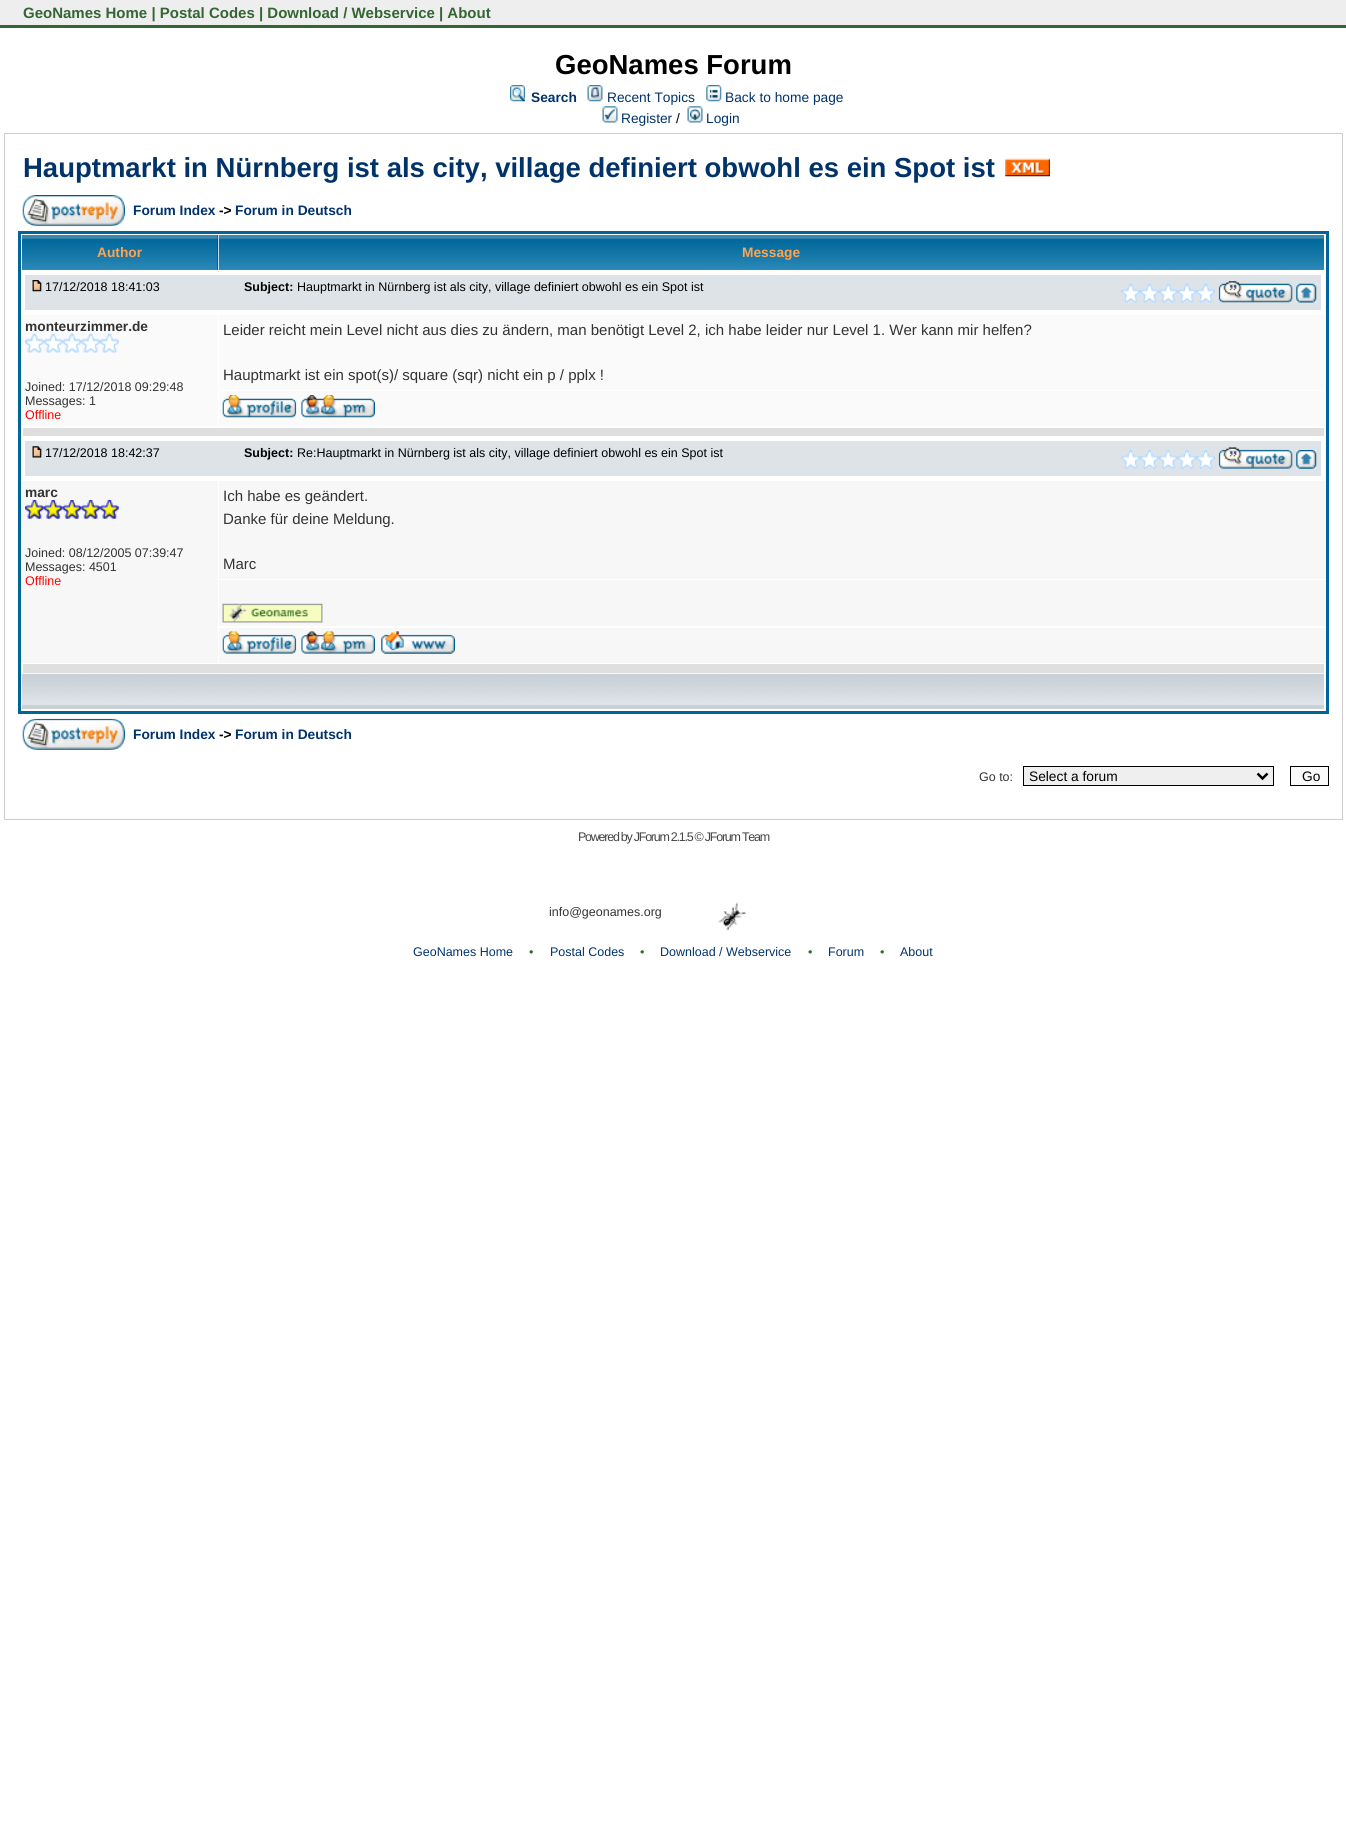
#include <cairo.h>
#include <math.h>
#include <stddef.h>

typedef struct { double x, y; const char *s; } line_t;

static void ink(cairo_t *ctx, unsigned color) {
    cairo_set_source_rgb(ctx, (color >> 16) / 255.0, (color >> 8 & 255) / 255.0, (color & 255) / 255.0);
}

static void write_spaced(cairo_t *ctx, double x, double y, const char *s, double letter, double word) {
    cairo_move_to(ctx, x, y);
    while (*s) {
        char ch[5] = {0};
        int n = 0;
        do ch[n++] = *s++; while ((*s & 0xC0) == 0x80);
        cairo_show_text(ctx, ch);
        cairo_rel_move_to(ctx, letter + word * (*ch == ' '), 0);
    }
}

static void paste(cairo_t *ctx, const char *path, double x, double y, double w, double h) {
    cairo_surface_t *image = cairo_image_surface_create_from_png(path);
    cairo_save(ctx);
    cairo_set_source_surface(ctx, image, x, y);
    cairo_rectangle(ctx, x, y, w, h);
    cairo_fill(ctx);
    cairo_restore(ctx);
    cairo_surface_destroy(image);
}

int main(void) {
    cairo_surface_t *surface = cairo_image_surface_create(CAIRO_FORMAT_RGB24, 1346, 1847);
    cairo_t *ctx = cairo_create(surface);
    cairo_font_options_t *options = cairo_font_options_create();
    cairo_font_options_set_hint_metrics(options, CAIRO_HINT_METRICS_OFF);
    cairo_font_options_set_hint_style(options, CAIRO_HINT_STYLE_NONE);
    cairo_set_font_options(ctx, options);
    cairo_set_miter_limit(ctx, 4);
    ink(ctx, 0xFFFFFF);
    cairo_paint(ctx);
    ink(ctx, 0xEEEEEE);
    cairo_rectangle(ctx, 0, 0, 1346, 25);
    cairo_fill(ctx);
    ink(ctx, 0x336633);
    cairo_rectangle(ctx, 0, 25, 1346, 3);
    cairo_fill(ctx);
    cairo_select_font_face(ctx, "Liberation Sans", CAIRO_FONT_SLANT_NORMAL, CAIRO_FONT_WEIGHT_BOLD);
    cairo_set_font_size(ctx, 15);
    cairo_move_to(ctx, 23, 18);
    cairo_show_text(ctx, "GeoNames Home | Postal Codes | Download / Webservice | About");
    cairo_set_font_size(ctx, 27.5);
    ink(ctx, 0x000000);
    cairo_move_to(ctx, 555, 74);
    cairo_show_text(ctx, "GeoNames Forum");
    paste(ctx, "media/1.png", 510, 85, 15, 17);
    cairo_set_font_size(ctx, 13.75);
    ink(ctx, 0x01336B);
    cairo_move_to(ctx, 531, 102);
    cairo_show_text(ctx, "Search");
    paste(ctx, "media/2.png", 587, 85, 16, 17);
    cairo_select_font_face(ctx, "Liberation Sans", CAIRO_FONT_SLANT_NORMAL, CAIRO_FONT_WEIGHT_NORMAL);
    cairo_move_to(ctx, 607, 102);
    cairo_show_text(ctx, "Recent Topics");
    paste(ctx, "media/3.png", 706, 85, 16, 17);
    cairo_move_to(ctx, 725, 102);
    cairo_show_text(ctx, "Back to home page");
    paste(ctx, "media/4.png", 602, 106, 16, 17);
    cairo_move_to(ctx, 621, 123);
    cairo_show_text(ctx, "Register");
    ink(ctx, 0x000000);
    cairo_move_to(ctx, 676, 123);
    cairo_show_text(ctx, "/");
    paste(ctx, "media/5.png", 687, 106, 16, 17);
    ink(ctx, 0x01336B);
    cairo_move_to(ctx, 706, 123);
    cairo_show_text(ctx, "Login");
    cairo_rectangle(ctx, 4.5, 133.5, 1338, 686);
    ink(ctx, 0xCCCCCC);
    cairo_set_line_width(ctx, 1);
    cairo_stroke(ctx);
    cairo_select_font_face(ctx, "Liberation Sans", CAIRO_FONT_SLANT_NORMAL, CAIRO_FONT_WEIGHT_BOLD);
    cairo_set_font_size(ctx, 27.5);
    ink(ctx, 0x01336B);
    cairo_move_to(ctx, 23, 177);
    cairo_show_text(ctx, "Hauptmarkt in Nürnberg ist als city, village definiert obwohl es ein Spot ist");
    paste(ctx, "media/6.png", 1005, 158, 45, 19);
    paste(ctx, "media/7.png", 22, 195, 103, 32);
    cairo_set_font_size(ctx, 13.75);
    cairo_move_to(ctx, 133, 215);
    cairo_show_text(ctx, "Forum Index");
    ink(ctx, 0x000000);
    cairo_move_to(ctx, 219, 215);
    cairo_show_text(ctx, "->");
    ink(ctx, 0x01336B);
    cairo_move_to(ctx, 235, 215);
    cairo_show_text(ctx, "Forum in Deutsch");
    cairo_rectangle(ctx, 19.5, 232.5, 1308, 480);
    ink(ctx, 0x006699);
    cairo_set_line_width(ctx, 3);
    cairo_stroke(ctx);
    ink(ctx, 0x01336B);
    cairo_rectangle(ctx, 217, 235, 1, 35);
    cairo_fill(ctx);
    paste(ctx, "media/8.png", 22, 235, 196, 35);
    ink(ctx, 0xFFA34F);
    cairo_move_to(ctx, 97, 257);
    cairo_show_text(ctx, "Author");
    paste(ctx, "media/9.png", 218, 235, 1106, 35);
    cairo_move_to(ctx, 742, 257);
    cairo_show_text(ctx, "Message");
    ink(ctx, 0xDEE3E7);
    cairo_rectangle(ctx, 25, 275, 1296, 35);
    cairo_fill(ctx);
    paste(ctx, "media/10.png", 32, 280, 10, 12);
    cairo_select_font_face(ctx, "Liberation Sans", CAIRO_FONT_SLANT_NORMAL, CAIRO_FONT_WEIGHT_NORMAL);
    cairo_set_font_size(ctx, 12.5);
    ink(ctx, 0x000000);
    cairo_move_to(ctx, 45, 291);
    cairo_show_text(ctx, "17/12/2018 18:41:03");
    cairo_select_font_face(ctx, "Liberation Sans", CAIRO_FONT_SLANT_NORMAL, CAIRO_FONT_WEIGHT_BOLD);
    cairo_move_to(ctx, 244, 291);
    cairo_show_text(ctx, "Subject:");
    cairo_select_font_face(ctx, "Liberation Sans", CAIRO_FONT_SLANT_NORMAL, CAIRO_FONT_WEIGHT_NORMAL);
    cairo_move_to(ctx, 297, 291);
    cairo_show_text(ctx, "Hauptmarkt in Nürnberg ist als city, village definiert obwohl es ein Spot ist");
    paste(ctx, "media/11.png", 1121, 283, 19, 20);
    paste(ctx, "media/12.png", 1140, 283, 19, 20);
    paste(ctx, "media/13.png", 1159, 283, 19, 20);
    paste(ctx, "media/14.png", 1177, 283, 20, 20);
    paste(ctx, "media/15.png", 1196, 283, 19, 20);
    paste(ctx, "media/16.png", 1218, 281, 75, 22);
    paste(ctx, "media/17.png", 1296, 283, 21, 20);
    ink(ctx, 0xFAFAFA);
    cairo_rectangle(ctx, 21, 315, 197, 111);
    cairo_fill(ctx);
    cairo_select_font_face(ctx, "Liberation Sans", CAIRO_FONT_SLANT_NORMAL, CAIRO_FONT_WEIGHT_BOLD);
    cairo_set_font_size(ctx, 13.75);
    ink(ctx, 0x333333);
    cairo_move_to(ctx, 25, 331);
    cairo_show_text(ctx, "monteurzimmer.de");
    paste(ctx, "media/18.png", 25, 333, 19, 20);
    paste(ctx, "media/19.png", 43, 333, 20, 20);
    paste(ctx, "media/20.png", 62, 333, 20, 20);
    paste(ctx, "media/21.png", 81, 333, 19, 20);
    paste(ctx, "media/22.png", 100, 333, 19, 20);
    cairo_select_font_face(ctx, "Liberation Sans", CAIRO_FONT_SLANT_NORMAL, CAIRO_FONT_WEIGHT_NORMAL);
    cairo_set_font_size(ctx, 12.5);
    cairo_move_to(ctx, 25, 391);
    cairo_show_text(ctx, "Joined: 17/12/2018 09:29:48");
    cairo_move_to(ctx, 25, 405);
    cairo_show_text(ctx, "Messages: 1");
    ink(ctx, 0xFF0000);
    cairo_move_to(ctx, 25, 419);
    cairo_show_text(ctx, "Offline");
    ink(ctx, 0xFAFAFA);
    cairo_rectangle(ctx, 219, 315, 1106, 75);
    cairo_fill(ctx);
    cairo_set_font_size(ctx, 15);
    ink(ctx, 0x333333);
    cairo_move_to(ctx, 223, 335);
    cairo_show_text(ctx, "Leider reicht mein Level nicht aus dies zu ändern, man benötigt Level 2, ich habe leider nur Level 1. Wer kann mir helfen?");
    cairo_move_to(ctx, 223, 380);
    cairo_show_text(ctx, "Hauptmarkt ist ein spot(s)/ square (sqr) nicht ein p / pplx !");
    ink(ctx, 0xFAFAFA);
    cairo_rectangle(ctx, 219, 391, 1106, 35);
    cairo_fill(ctx);
    paste(ctx, "media/23.png", 222, 395, 75, 23);
    paste(ctx, "media/24.png", 301, 395, 74, 23);
    ink(ctx, 0xDFDFDF);
    cairo_rectangle(ctx, 23, 428, 1301, 8);
    cairo_fill(ctx);
    ink(ctx, 0xDEE3E7);
    cairo_rectangle(ctx, 25, 441, 1296, 35);
    cairo_fill(ctx);
    paste(ctx, "media/25.png", 32, 446, 10, 12);
    cairo_set_font_size(ctx, 12.5);
    ink(ctx, 0x000000);
    cairo_move_to(ctx, 45, 457);
    cairo_show_text(ctx, "17/12/2018 18:42:37");
    cairo_select_font_face(ctx, "Liberation Sans", CAIRO_FONT_SLANT_NORMAL, CAIRO_FONT_WEIGHT_BOLD);
    cairo_move_to(ctx, 244, 457);
    cairo_show_text(ctx, "Subject:");
    cairo_select_font_face(ctx, "Liberation Sans", CAIRO_FONT_SLANT_NORMAL, CAIRO_FONT_WEIGHT_NORMAL);
    cairo_move_to(ctx, 297, 457);
    cairo_show_text(ctx, "Re:Hauptmarkt in Nürnberg ist als city, village definiert obwohl es ein Spot ist");
    paste(ctx, "media/26.png", 1121, 450, 19, 19);
    paste(ctx, "media/27.png", 1140, 450, 19, 19);
    paste(ctx, "media/28.png", 1159, 450, 19, 19);
    paste(ctx, "media/29.png", 1177, 450, 20, 19);
    paste(ctx, "media/30.png", 1196, 450, 19, 19);
    paste(ctx, "media/31.png", 1218, 447, 75, 22);
    paste(ctx, "media/32.png", 1296, 450, 21, 19);
    ink(ctx, 0xF7F7F8);
    cairo_rectangle(ctx, 21, 481, 197, 182);
    cairo_fill(ctx);
    cairo_select_font_face(ctx, "Liberation Sans", CAIRO_FONT_SLANT_NORMAL, CAIRO_FONT_WEIGHT_BOLD);
    cairo_set_font_size(ctx, 13.75);
    ink(ctx, 0x333333);
    cairo_move_to(ctx, 25, 497);
    cairo_show_text(ctx, "marc");
    paste(ctx, "media/33.png", 25, 500, 19, 19);
    paste(ctx, "media/34.png", 43, 500, 20, 19);
    paste(ctx, "media/35.png", 62, 500, 20, 19);
    paste(ctx, "media/36.png", 81, 500, 19, 19);
    paste(ctx, "media/37.png", 100, 500, 19, 19);
    cairo_select_font_face(ctx, "Liberation Sans", CAIRO_FONT_SLANT_NORMAL, CAIRO_FONT_WEIGHT_NORMAL);
    cairo_set_font_size(ctx, 12.5);
    cairo_move_to(ctx, 25, 557);
    cairo_show_text(ctx, "Joined: 08/12/2005 07:39:47");
    cairo_move_to(ctx, 25, 571);
    cairo_show_text(ctx, "Messages: 4501");
    ink(ctx, 0xFF0000);
    cairo_move_to(ctx, 25, 585);
    cairo_show_text(ctx, "Offline");
    ink(ctx, 0xF7F7F8);
    cairo_rectangle(ctx, 219, 481, 1106, 98);
    cairo_fill(ctx);
    cairo_set_font_size(ctx, 15);
    ink(ctx, 0x333333);
    {
        static const line_t items[] = {
            {223, 501, "Ich habe es geändert."},
            {223, 524, "Danke für deine Meldung."},
            {223, 569, "Marc"},
        };
        for (size_t i = 0; i < sizeof items / sizeof *items; i++) {
            cairo_move_to(ctx, items[i].x, items[i].y);
            cairo_show_text(ctx, items[i].s);
        }
    }
    ink(ctx, 0xF7F7F8);
    cairo_rectangle(ctx, 219, 580, 1106, 46);
    cairo_fill(ctx);
    paste(ctx, "media/38.png", 222, 603, 101, 20);
    cairo_rectangle(ctx, 219, 628, 1106, 35);
    cairo_fill(ctx);
    paste(ctx, "media/39.png", 222, 631, 75, 23);
    paste(ctx, "media/40.png", 301, 631, 74, 23);
    paste(ctx, "media/41.png", 381, 631, 74, 23);
    ink(ctx, 0xDFDFDF);
    cairo_rectangle(ctx, 23, 664, 1301, 9);
    cairo_fill(ctx);
    paste(ctx, "media/42.png", 21, 673, 1304, 36);
    ink(ctx, 0xFFFFFF);
    cairo_rectangle(ctx, 1324, 674, 1, 36);
    cairo_fill(ctx);
    cairo_rectangle(ctx, 21, 674, 1, 36);
    cairo_fill(ctx);
    paste(ctx, "media/43.png", 22, 718, 103, 32);
    cairo_select_font_face(ctx, "Liberation Sans", CAIRO_FONT_SLANT_NORMAL, CAIRO_FONT_WEIGHT_BOLD);
    cairo_set_font_size(ctx, 13.75);
    ink(ctx, 0x01336B);
    cairo_move_to(ctx, 133, 739);
    cairo_show_text(ctx, "Forum Index");
    ink(ctx, 0x000000);
    cairo_move_to(ctx, 219, 739);
    cairo_show_text(ctx, "->");
    ink(ctx, 0x01336B);
    cairo_move_to(ctx, 235, 739);
    cairo_show_text(ctx, "Forum in Deutsch");
    cairo_select_font_face(ctx, "Liberation Sans", CAIRO_FONT_SLANT_NORMAL, CAIRO_FONT_WEIGHT_NORMAL);
    cairo_set_font_size(ctx, 12.5);
    ink(ctx, 0x333333);
    cairo_move_to(ctx, 979, 781);
    cairo_show_text(ctx, "Go to:");
    ink(ctx, 0xEFEFEF);
    cairo_rectangle(ctx, 1023.5, 766.5, 250, 19);
    cairo_fill_preserve(ctx);
    ink(ctx, 0x000000);
    cairo_set_line_width(ctx, 1);
    cairo_stroke(ctx);
    cairo_new_path(ctx);
    cairo_move_to(ctx, 1257.5, 773.5);
    cairo_line_to(ctx, 1262.5, 778.5);
    cairo_line_to(ctx, 1267.5, 773.5);
    cairo_set_line_width(ctx, 2.5);
    cairo_stroke(ctx);
    cairo_set_font_size(ctx, 13.75);
    cairo_move_to(ctx, 1029, 781);
    cairo_show_text(ctx, "Select a forum");
    ink(ctx, 0xFAFAFA);
    cairo_rectangle(ctx, 1290.5, 766.5, 38, 19);
    cairo_fill_preserve(ctx);
    ink(ctx, 0x000000);
    cairo_set_line_width(ctx, 1);
    cairo_stroke(ctx);
    cairo_move_to(ctx, 1302, 781);
    cairo_show_text(ctx, "Go");
    cairo_set_font_size(ctx, 12.5);
    ink(ctx, 0x444444);
    write_spaced(ctx, 578, 841, "Powered by JForum 2.1.5 © JForum Team", -1.25, 0);
    ink(ctx, 0x333333);
    cairo_move_to(ctx, 549, 916);
    cairo_show_text(ctx, "info@geonames.org");
    paste(ctx, "media/44.png", 718, 902, 29, 29);
    ink(ctx, 0x01336B);
    cairo_move_to(ctx, 413, 956);
    cairo_show_text(ctx, "GeoNames Home");
    ink(ctx, 0x336633);
    cairo_move_to(ctx, 529, 956);
    cairo_show_text(ctx, "•");
    ink(ctx, 0x01336B);
    cairo_move_to(ctx, 550, 956);
    cairo_show_text(ctx, "Postal Codes");
    ink(ctx, 0x336633);
    cairo_move_to(ctx, 640, 956);
    cairo_show_text(ctx, "•");
    ink(ctx, 0x01336B);
    cairo_move_to(ctx, 660, 956);
    cairo_show_text(ctx, "Download / Webservice");
    ink(ctx, 0x336633);
    cairo_move_to(ctx, 808, 956);
    cairo_show_text(ctx, "•");
    ink(ctx, 0x01336B);
    cairo_move_to(ctx, 828, 956);
    cairo_show_text(ctx, "Forum");
    ink(ctx, 0x336633);
    cairo_move_to(ctx, 880, 956);
    cairo_show_text(ctx, "•");
    ink(ctx, 0x01336B);
    cairo_move_to(ctx, 900, 956);
    cairo_show_text(ctx, "About");
    cairo_surface_write_to_png(surface, "image.png");
    cairo_font_options_destroy(options);
    cairo_destroy(ctx);
    cairo_surface_destroy(surface);
    return 0;
}
